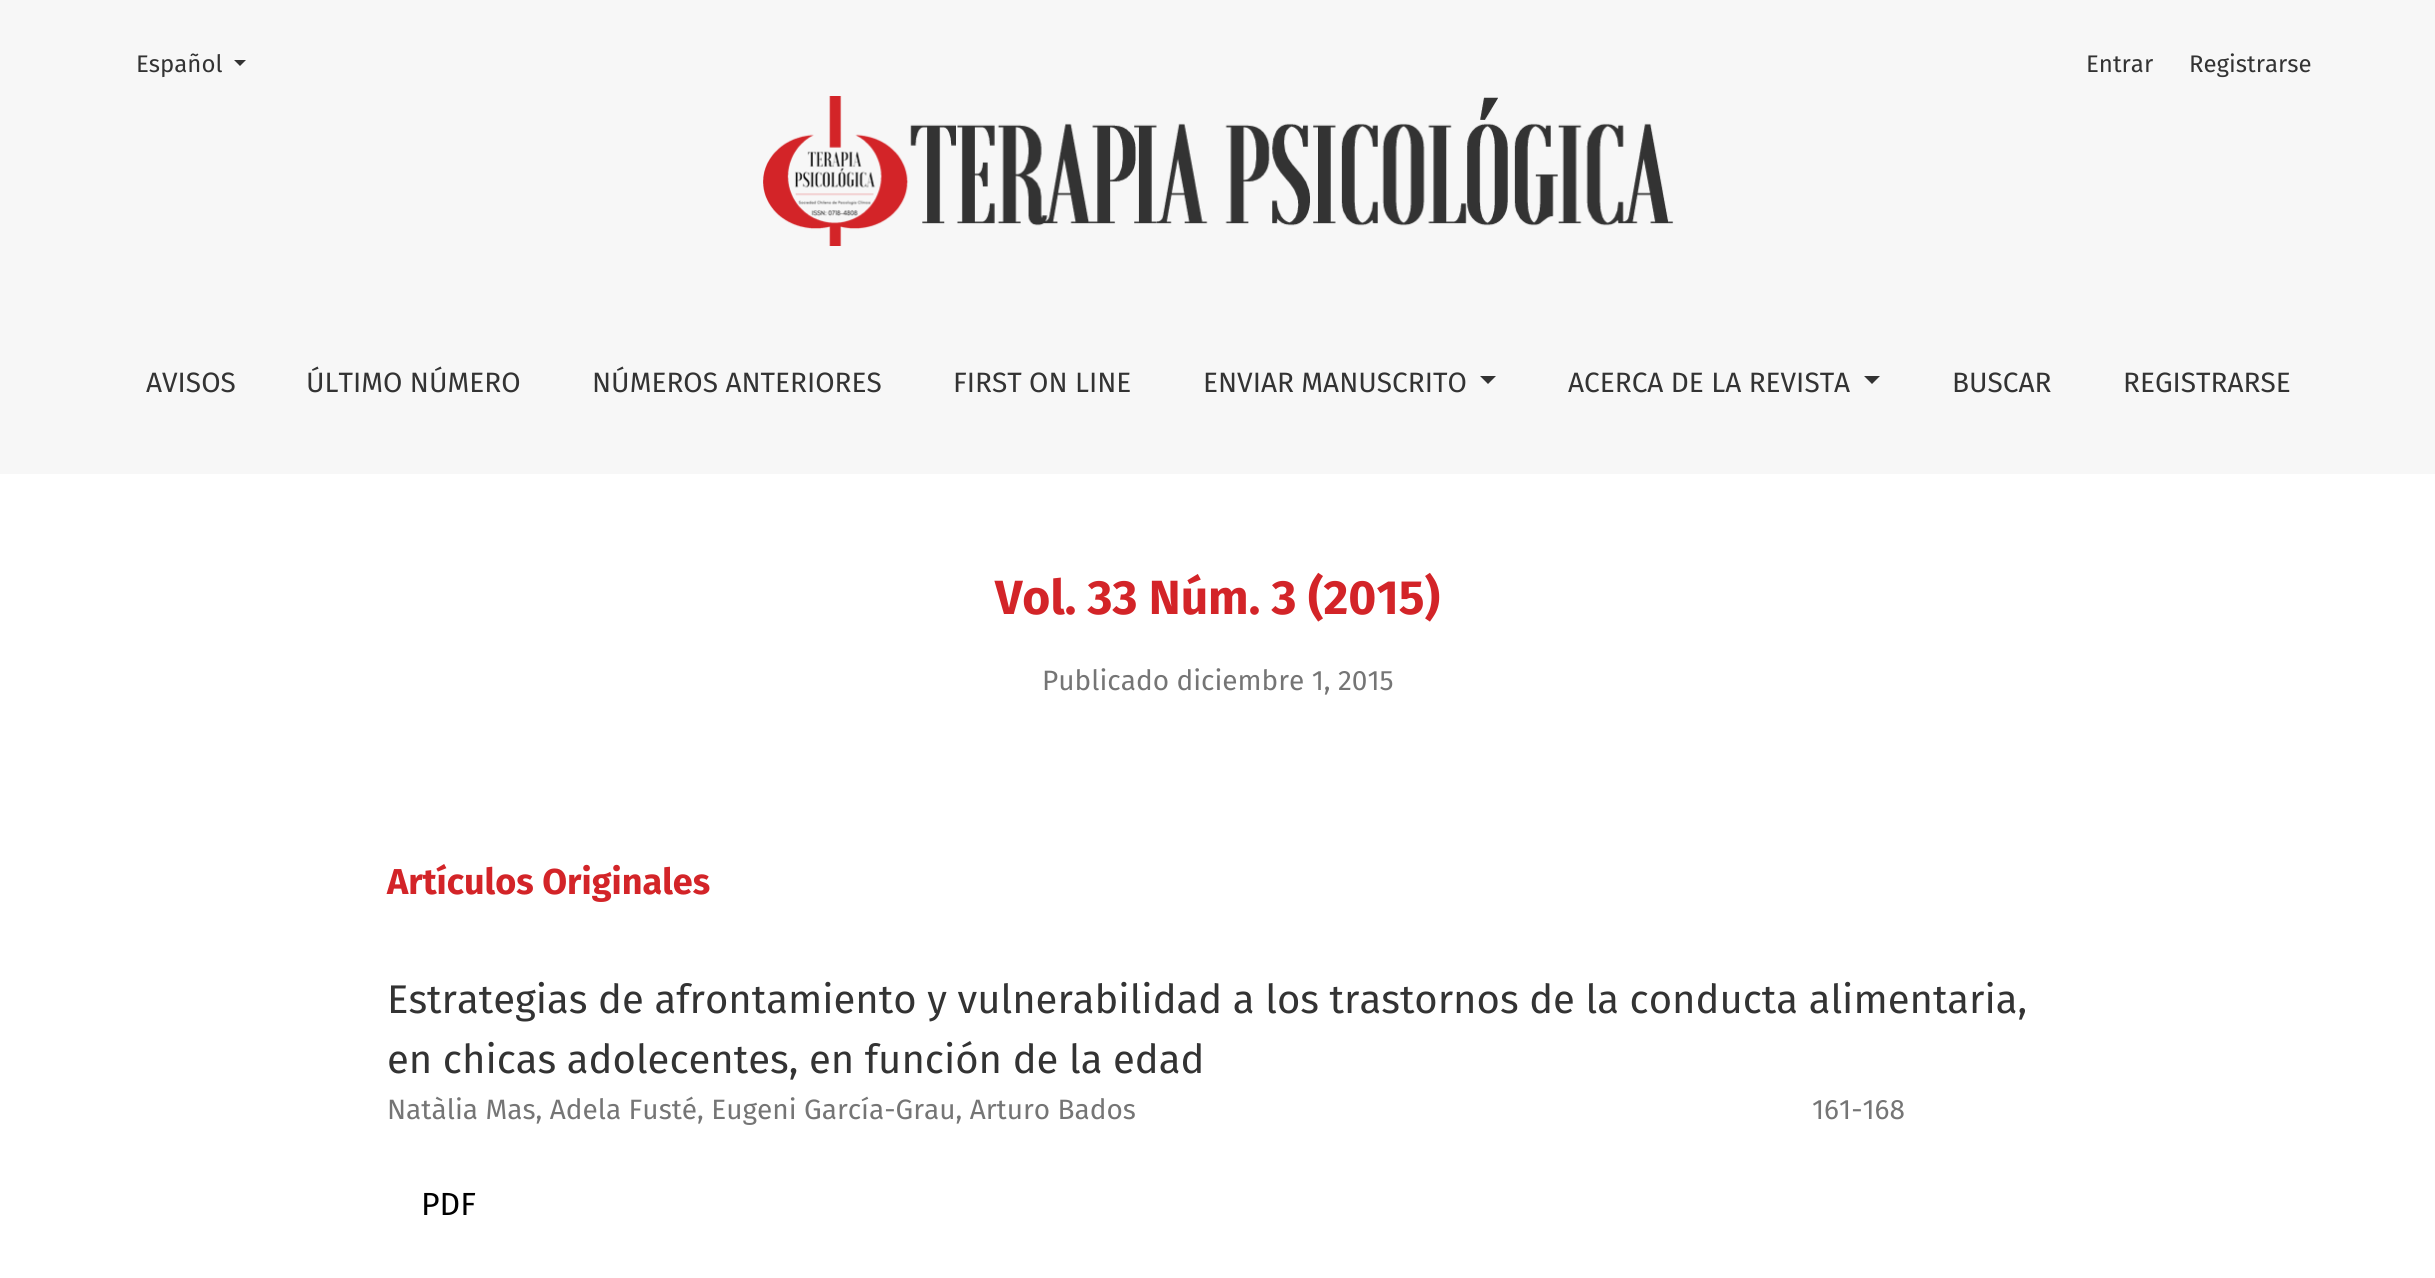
#include <cairo.h>
#include <math.h>
#include <stddef.h>

typedef struct { double x, y; const char *s; } line_t;

static void ink(cairo_t *ctx, unsigned color) {
    cairo_set_source_rgb(ctx, (color >> 16) / 255.0, (color >> 8 & 255) / 255.0, (color & 255) / 255.0);
}

static void paste(cairo_t *ctx, const char *path, double x, double y, double w, double h) {
    cairo_surface_t *image = cairo_image_surface_create_from_png(path);
    cairo_save(ctx);
    cairo_set_source_surface(ctx, image, x, y);
    cairo_rectangle(ctx, x, y, w, h);
    cairo_fill(ctx);
    cairo_restore(ctx);
    cairo_surface_destroy(image);
}

int main(void) {
    cairo_surface_t *surface = cairo_image_surface_create(CAIRO_FORMAT_RGB24, 2435, 1278);
    cairo_t *ctx = cairo_create(surface);
    cairo_font_options_t *options = cairo_font_options_create();
    cairo_font_options_set_hint_metrics(options, CAIRO_HINT_METRICS_OFF);
    cairo_font_options_set_hint_style(options, CAIRO_HINT_STYLE_NONE);
    cairo_set_font_options(ctx, options);
    cairo_set_miter_limit(ctx, 4);
    ink(ctx, 0xFFFFFF);
    cairo_paint(ctx);
    ink(ctx, 0xF7F7F7);
    cairo_rectangle(ctx, 0, 0, 2435, 474);
    cairo_fill(ctx);
    cairo_select_font_face(ctx, "Fira Sans", CAIRO_FONT_SLANT_NORMAL, CAIRO_FONT_WEIGHT_NORMAL);
    cairo_set_font_size(ctx, 24);
    ink(ctx, 0x333333);
    cairo_move_to(ctx, 136, 72);
    cairo_show_text(ctx, "Español");
    cairo_new_path(ctx);
    cairo_move_to(ctx, 234, 60);
    cairo_line_to(ctx, 246, 60);
    cairo_line_to(ctx, 240, 66);
    cairo_close_path(ctx);
    cairo_fill(ctx);
    cairo_move_to(ctx, 2086, 72);
    cairo_show_text(ctx, "Entrar");
    cairo_move_to(ctx, 2189, 72);
    cairo_show_text(ctx, "Registrarse");
    paste(ctx, "media/1.png", 763, 96, 911, 150);
    cairo_set_font_size(ctx, 28);
    {
        static const line_t items[] = {
            {146, 392, "AVISOS"},
            {306, 392, "ÚLTIMO NÚMERO"},
            {592, 392, "NÚMEROS ANTERIORES"},
            {953, 392, "FIRST ON LINE"},
            {1203, 392, "ENVIAR MANUSCRITO"},
        };
        for (size_t i = 0; i < sizeof items / sizeof *items; i++) {
            cairo_move_to(ctx, items[i].x, items[i].y);
            cairo_show_text(ctx, items[i].s);
        }
    }
    cairo_new_path(ctx);
    cairo_move_to(ctx, 1480, 376);
    cairo_line_to(ctx, 1496, 376);
    cairo_line_to(ctx, 1488, 384);
    cairo_close_path(ctx);
    cairo_fill(ctx);
    cairo_move_to(ctx, 1568, 392);
    cairo_show_text(ctx, "ACERCA DE LA REVISTA");
    cairo_new_path(ctx);
    cairo_move_to(ctx, 1864, 376);
    cairo_line_to(ctx, 1880, 376);
    cairo_line_to(ctx, 1872, 384);
    cairo_close_path(ctx);
    cairo_fill(ctx);
    cairo_move_to(ctx, 1952, 392);
    cairo_show_text(ctx, "BUSCAR");
    cairo_move_to(ctx, 2123, 392);
    cairo_show_text(ctx, "REGISTRARSE");
    cairo_select_font_face(ctx, "Fira Sans", CAIRO_FONT_SLANT_NORMAL, CAIRO_FONT_WEIGHT_BOLD);
    cairo_set_font_size(ctx, 48);
    ink(ctx, 0xD32428);
    cairo_move_to(ctx, 995, 614);
    cairo_show_text(ctx, "Vol. 33 Núm. 3 (2015)");
    cairo_select_font_face(ctx, "Fira Sans", CAIRO_FONT_SLANT_NORMAL, CAIRO_FONT_WEIGHT_NORMAL);
    cairo_set_font_size(ctx, 28);
    ink(ctx, 0x757575);
    cairo_move_to(ctx, 1042, 690);
    cairo_show_text(ctx, "Publicado diciembre 1, 2015");
    cairo_select_font_face(ctx, "Fira Sans", CAIRO_FONT_SLANT_NORMAL, CAIRO_FONT_WEIGHT_BOLD);
    cairo_set_font_size(ctx, 36);
    ink(ctx, 0xD32428);
    cairo_move_to(ctx, 387, 894);
    cairo_show_text(ctx, "Artículos Originales");
    cairo_select_font_face(ctx, "Fira Sans", CAIRO_FONT_SLANT_NORMAL, CAIRO_FONT_WEIGHT_NORMAL);
    cairo_set_font_size(ctx, 40);
    ink(ctx, 0x333333);
    cairo_move_to(ctx, 387, 1013);
    cairo_show_text(ctx, "Estrategias de afrontamiento y vulnerabilidad a los trastornos de la conducta alimentaria,");
    cairo_move_to(ctx, 387, 1073);
    cairo_show_text(ctx, "en chicas adolecentes, en función de la edad");
    cairo_set_font_size(ctx, 28);
    ink(ctx, 0x757575);
    cairo_move_to(ctx, 387, 1119);
    cairo_show_text(ctx, "Natàlia Mas, Adela Fusté, Eugeni García-Grau, Arturo Bados");
    cairo_move_to(ctx, 1812, 1119);
    cairo_show_text(ctx, "161-168");
    cairo_set_font_size(ctx, 32);
    ink(ctx, 0x000000);
    cairo_move_to(ctx, 421, 1215);
    cairo_show_text(ctx, "PDF");
    cairo_surface_write_to_png(surface, "image.png");
    cairo_font_options_destroy(options);
    cairo_destroy(ctx);
    cairo_surface_destroy(surface);
    return 0;
}
